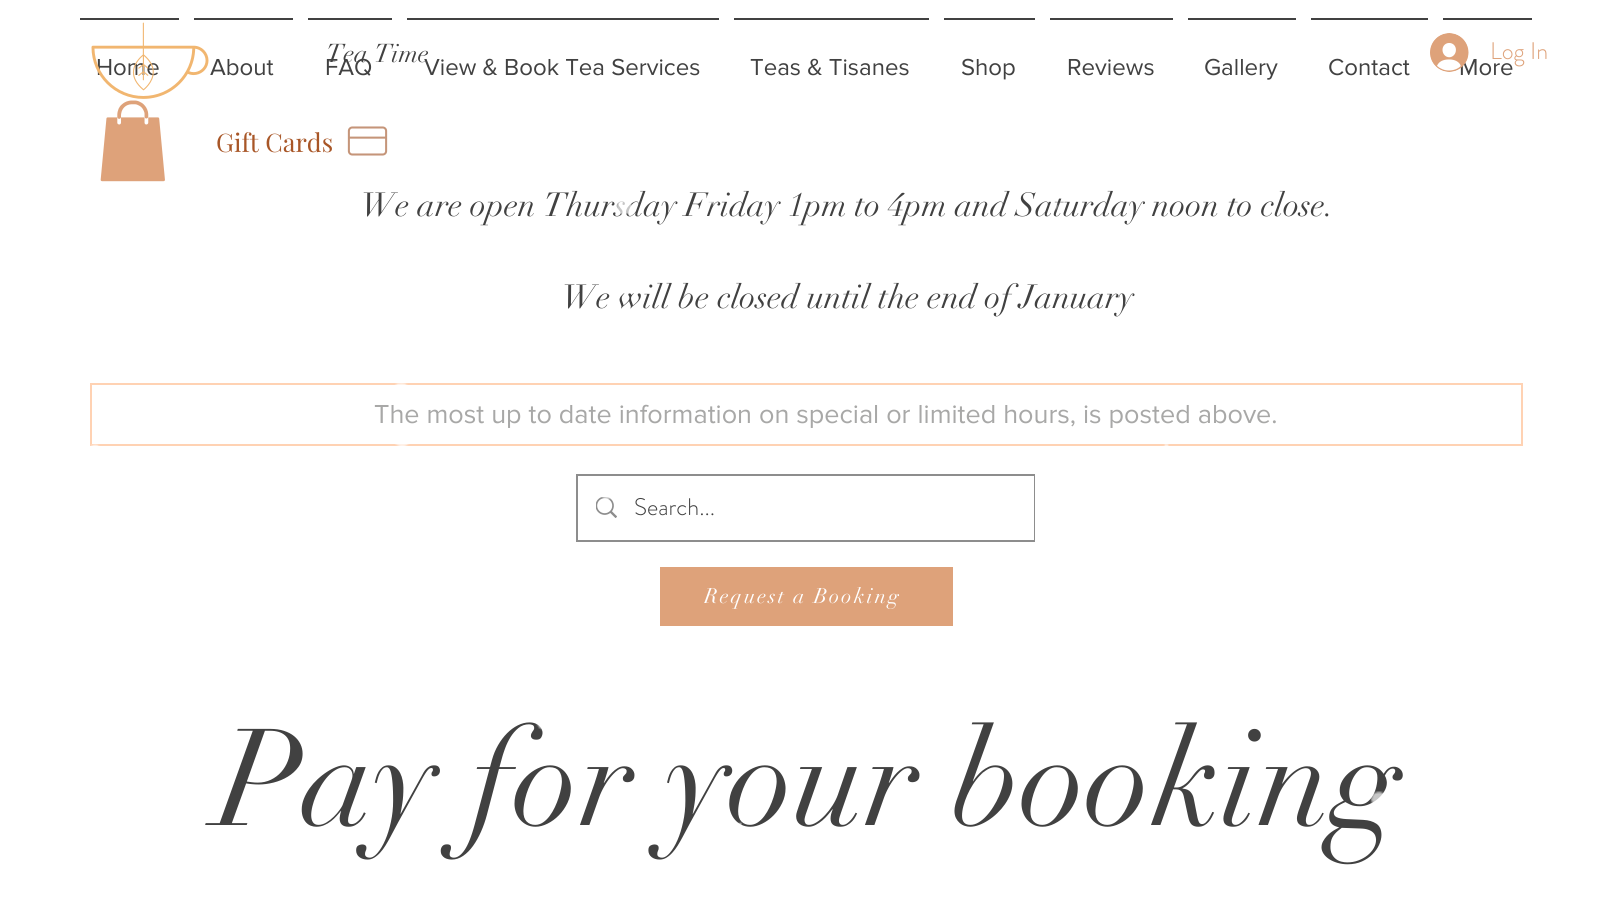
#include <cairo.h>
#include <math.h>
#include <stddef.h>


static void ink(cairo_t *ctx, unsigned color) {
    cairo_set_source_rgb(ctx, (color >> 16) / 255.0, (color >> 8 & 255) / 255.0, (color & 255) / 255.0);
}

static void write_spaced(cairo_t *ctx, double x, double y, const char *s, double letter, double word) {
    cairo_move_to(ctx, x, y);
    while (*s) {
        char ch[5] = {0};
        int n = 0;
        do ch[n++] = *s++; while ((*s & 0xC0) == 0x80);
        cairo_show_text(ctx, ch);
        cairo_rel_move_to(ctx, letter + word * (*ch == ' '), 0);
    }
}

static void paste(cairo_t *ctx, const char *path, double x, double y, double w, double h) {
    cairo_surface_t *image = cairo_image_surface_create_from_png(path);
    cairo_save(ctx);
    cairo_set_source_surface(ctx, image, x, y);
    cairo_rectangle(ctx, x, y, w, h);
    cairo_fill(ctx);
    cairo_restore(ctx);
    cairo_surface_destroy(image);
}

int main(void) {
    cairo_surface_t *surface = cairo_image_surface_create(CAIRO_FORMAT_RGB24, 1612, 920);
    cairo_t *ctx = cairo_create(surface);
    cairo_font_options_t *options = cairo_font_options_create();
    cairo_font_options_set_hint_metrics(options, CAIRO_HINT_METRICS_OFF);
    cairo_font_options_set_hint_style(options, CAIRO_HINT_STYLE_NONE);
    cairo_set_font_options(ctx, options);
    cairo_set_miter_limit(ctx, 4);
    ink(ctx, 0xFFFFFF);
    cairo_paint(ctx);
    cairo_select_font_face(ctx, "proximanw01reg", CAIRO_FONT_SLANT_NORMAL, CAIRO_FONT_WEIGHT_NORMAL);
    cairo_set_font_size(ctx, 24);
    ink(ctx, 0x414141);
    cairo_move_to(ctx, 96, 75);
    cairo_show_text(ctx, "Home");
    paste(ctx, "media/1.png", 91, 22, 118, 77);
    cairo_select_font_face(ctx, "didot", CAIRO_FONT_SLANT_NORMAL, CAIRO_FONT_WEIGHT_NORMAL);
    cairo_set_font_size(ctx, 25.5);
    cairo_move_to(ctx, 326, 62);
    cairo_show_text(ctx, "Tea Time");
    cairo_select_font_face(ctx, "proximanw01reg", CAIRO_FONT_SLANT_NORMAL, CAIRO_FONT_WEIGHT_NORMAL);
    cairo_set_font_size(ctx, 24);
    cairo_move_to(ctx, 1459, 75);
    cairo_show_text(ctx, "More");
    paste(ctx, "media/2.png", 1430, 33, 39, 39);
    cairo_select_font_face(ctx, "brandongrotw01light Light", CAIRO_FONT_SLANT_NORMAL, CAIRO_FONT_WEIGHT_NORMAL);
    ink(ctx, 0xDEA27A);
    cairo_move_to(ctx, 1490, 59);
    cairo_show_text(ctx, "Log In");
    ink(ctx, 0x414141);
    cairo_rectangle(ctx, 80, 18, 99, 2);
    cairo_fill(ctx);
    cairo_rectangle(ctx, 194, 18, 99, 2);
    cairo_fill(ctx);
    cairo_select_font_face(ctx, "proximanw01reg", CAIRO_FONT_SLANT_NORMAL, CAIRO_FONT_WEIGHT_NORMAL);
    cairo_move_to(ctx, 210, 75);
    cairo_show_text(ctx, "About");
    cairo_rectangle(ctx, 308, 18, 84, 2);
    cairo_fill(ctx);
    cairo_move_to(ctx, 325, 75);
    cairo_show_text(ctx, "FAQ");
    cairo_rectangle(ctx, 407, 18, 312, 2);
    cairo_fill(ctx);
    cairo_move_to(ctx, 424, 75);
    cairo_show_text(ctx, "View & Book Tea Services");
    cairo_rectangle(ctx, 734, 18, 195, 2);
    cairo_fill(ctx);
    cairo_move_to(ctx, 750, 75);
    cairo_show_text(ctx, "Teas & Tisanes");
    cairo_rectangle(ctx, 944, 18, 91, 2);
    cairo_fill(ctx);
    cairo_move_to(ctx, 961, 75);
    cairo_show_text(ctx, "Shop");
    cairo_rectangle(ctx, 1050, 18, 123, 2);
    cairo_fill(ctx);
    cairo_move_to(ctx, 1067, 75);
    cairo_show_text(ctx, "Reviews");
    cairo_rectangle(ctx, 1188, 18, 108, 2);
    cairo_fill(ctx);
    cairo_move_to(ctx, 1204, 75);
    cairo_show_text(ctx, "Gallery");
    cairo_rectangle(ctx, 1311, 18, 117, 2);
    cairo_fill(ctx);
    cairo_move_to(ctx, 1328, 75);
    cairo_show_text(ctx, "Contact");
    cairo_rectangle(ctx, 1443, 18, 89, 2);
    cairo_fill(ctx);
    paste(ctx, "media/3.png", 100, 100, 65, 82);
    cairo_select_font_face(ctx, "Playfair Display", CAIRO_FONT_SLANT_NORMAL, CAIRO_FONT_WEIGHT_NORMAL);
    cairo_set_font_size(ctx, 25.5);
    ink(ctx, 0xA85627);
    cairo_move_to(ctx, 216, 152);
    cairo_show_text(ctx, "Gift Cards");
    paste(ctx, "media/4.png", 347, 126, 41, 30);
    cairo_select_font_face(ctx, "didot", CAIRO_FONT_SLANT_NORMAL, CAIRO_FONT_WEIGHT_NORMAL);
    cairo_set_font_size(ctx, 33);
    ink(ctx, 0x414141);
    cairo_move_to(ctx, 361, 216);
    cairo_show_text(ctx, "We are open Thursday Friday 1pm to 4pm and Saturday noon to close.");
    cairo_move_to(ctx, 562, 308);
    cairo_show_text(ctx, "We will be closed until the end of January");
    cairo_rectangle(ctx, 91, 384, 1431, 61);
    ink(ctx, 0xFFD2B3);
    cairo_stroke(ctx);
    cairo_select_font_face(ctx, "proximanw01reg", CAIRO_FONT_SLANT_NORMAL, CAIRO_FONT_WEIGHT_NORMAL);
    cairo_set_font_size(ctx, 27);
    ink(ctx, 0xA8A8A7);
    cairo_move_to(ctx, 374, 423);
    cairo_show_text(ctx, "The most up to date information on special or limited hours, is posted above.");
    cairo_rectangle(ctx, 577, 475, 457, 66);
    ink(ctx, 0x8D8D8D);
    cairo_stroke(ctx);
    ink(ctx, 0xFFFFFF);
    cairo_rectangle(ctx, 1033, 476, 1, 64);
    cairo_fill(ctx);
    paste(ctx, "media/5.png", 596, 497, 21, 21);
    cairo_select_font_face(ctx, "brandongrotw01light Light", CAIRO_FONT_SLANT_NORMAL, CAIRO_FONT_WEIGHT_NORMAL);
    cairo_set_font_size(ctx, 24);
    ink(ctx, 0x414141);
    cairo_move_to(ctx, 634, 515);
    cairo_show_text(ctx, "Search...");
    ink(ctx, 0xDEA27A);
    cairo_rectangle(ctx, 660, 567, 293, 59);
    cairo_fill(ctx);
    cairo_save(ctx);
    cairo_rectangle(ctx, 704, 584, 198, 25);
    cairo_clip(ctx);
    cairo_select_font_face(ctx, "didot", CAIRO_FONT_SLANT_NORMAL, CAIRO_FONT_WEIGHT_NORMAL);
    cairo_set_font_size(ctx, 21);
    ink(ctx, 0xFFFFFF);
    write_spaced(ctx, 704, 603, "Request a Booking", 2.1, 0);
    cairo_restore(ctx);
    cairo_select_font_face(ctx, "didot", CAIRO_FONT_SLANT_NORMAL, CAIRO_FONT_WEIGHT_NORMAL);
    cairo_set_font_size(ctx, 135);
    ink(ctx, 0x414141);
    cairo_move_to(ctx, 217, 825);
    cairo_show_text(ctx, "Pay for your booking");
    paste(ctx, "media/6.png", 90, 59, 1294, 766);
    cairo_surface_write_to_png(surface, "image.png");
    cairo_font_options_destroy(options);
    cairo_destroy(ctx);
    cairo_surface_destroy(surface);
    return 0;
}
